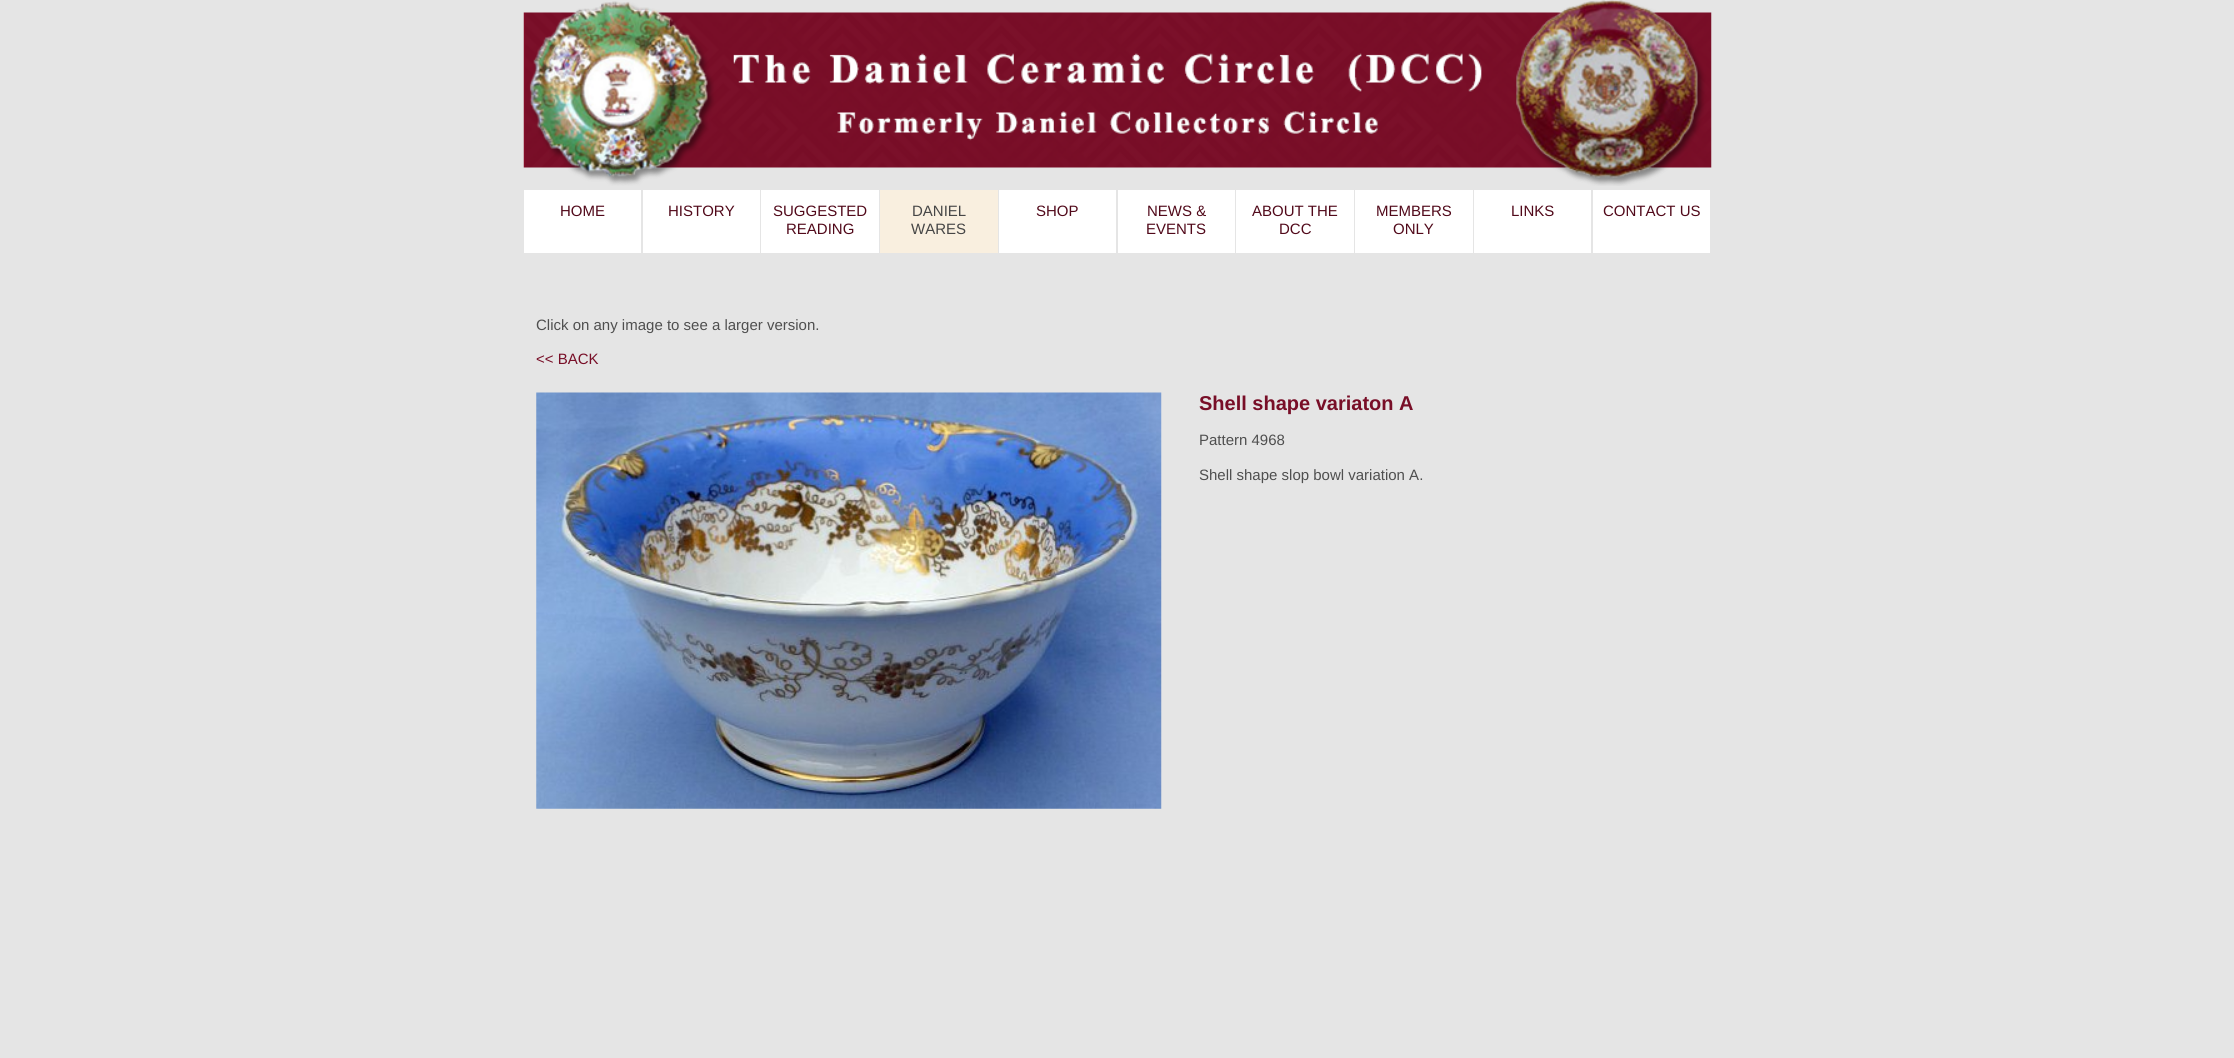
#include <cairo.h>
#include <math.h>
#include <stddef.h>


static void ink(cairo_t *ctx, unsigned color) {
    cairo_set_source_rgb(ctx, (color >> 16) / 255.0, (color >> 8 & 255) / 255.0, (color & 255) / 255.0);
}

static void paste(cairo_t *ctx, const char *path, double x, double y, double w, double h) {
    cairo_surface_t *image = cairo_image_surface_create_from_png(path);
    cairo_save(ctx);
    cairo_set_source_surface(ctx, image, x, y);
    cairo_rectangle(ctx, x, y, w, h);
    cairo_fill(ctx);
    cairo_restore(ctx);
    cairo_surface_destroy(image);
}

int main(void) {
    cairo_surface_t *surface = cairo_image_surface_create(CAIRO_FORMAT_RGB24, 2234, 1058);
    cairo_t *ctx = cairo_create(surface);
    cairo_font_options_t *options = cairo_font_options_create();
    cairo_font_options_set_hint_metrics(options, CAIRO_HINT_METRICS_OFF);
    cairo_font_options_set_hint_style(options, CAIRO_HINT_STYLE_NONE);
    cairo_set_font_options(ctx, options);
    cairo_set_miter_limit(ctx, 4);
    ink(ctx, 0xE5E5E5);
    cairo_paint(ctx);
    paste(ctx, "media/1.png", 523, 0, 1189, 186);
    ink(ctx, 0xFFFFFF);
    cairo_rectangle(ctx, 524, 190, 117, 63);
    cairo_fill(ctx);
    cairo_select_font_face(ctx, "Liberation Sans", CAIRO_FONT_SLANT_NORMAL, CAIRO_FONT_WEIGHT_NORMAL);
    cairo_set_font_size(ctx, 15);
    ink(ctx, 0x51091A);
    cairo_move_to(ctx, 560, 216);
    cairo_show_text(ctx, "HOME");
    ink(ctx, 0xFFFFFF);
    cairo_rectangle(ctx, 643, 190, 117, 63);
    cairo_fill(ctx);
    ink(ctx, 0x51091A);
    cairo_move_to(ctx, 668, 216);
    cairo_show_text(ctx, "HISTORY");
    ink(ctx, 0xFFFFFF);
    cairo_rectangle(ctx, 761, 190, 118, 63);
    cairo_fill(ctx);
    ink(ctx, 0x51091A);
    cairo_move_to(ctx, 773, 216);
    cairo_show_text(ctx, "SUGGESTED");
    cairo_move_to(ctx, 786, 234);
    cairo_show_text(ctx, "READING");
    ink(ctx, 0xF9EFDF);
    cairo_rectangle(ctx, 880, 190, 118, 63);
    cairo_fill(ctx);
    ink(ctx, 0x464646);
    cairo_move_to(ctx, 912, 216);
    cairo_show_text(ctx, "DANIEL");
    cairo_move_to(ctx, 911, 234);
    cairo_show_text(ctx, "WARES");
    ink(ctx, 0xFFFFFF);
    cairo_rectangle(ctx, 999, 190, 117, 63);
    cairo_fill(ctx);
    ink(ctx, 0x51091A);
    cairo_move_to(ctx, 1036, 216);
    cairo_show_text(ctx, "SHOP");
    ink(ctx, 0xFFFFFF);
    cairo_rectangle(ctx, 1118, 190, 117, 63);
    cairo_fill(ctx);
    ink(ctx, 0x51091A);
    cairo_move_to(ctx, 1147, 216);
    cairo_show_text(ctx, "NEWS &");
    cairo_move_to(ctx, 1146, 234);
    cairo_show_text(ctx, "EVENTS");
    ink(ctx, 0xFFFFFF);
    cairo_rectangle(ctx, 1236, 190, 118, 63);
    cairo_fill(ctx);
    ink(ctx, 0x51091A);
    cairo_move_to(ctx, 1252, 216);
    cairo_show_text(ctx, "ABOUT THE");
    cairo_move_to(ctx, 1279, 234);
    cairo_show_text(ctx, "DCC");
    ink(ctx, 0xFFFFFF);
    cairo_rectangle(ctx, 1355, 190, 118, 63);
    cairo_fill(ctx);
    ink(ctx, 0x51091A);
    cairo_move_to(ctx, 1376, 216);
    cairo_show_text(ctx, "MEMBERS");
    cairo_move_to(ctx, 1393, 234);
    cairo_show_text(ctx, "ONLY");
    ink(ctx, 0xFFFFFF);
    cairo_rectangle(ctx, 1474, 190, 117, 63);
    cairo_fill(ctx);
    ink(ctx, 0x51091A);
    cairo_move_to(ctx, 1511, 216);
    cairo_show_text(ctx, "LINKS");
    ink(ctx, 0xFFFFFF);
    cairo_rectangle(ctx, 1593, 190, 117, 63);
    cairo_fill(ctx);
    ink(ctx, 0x51091A);
    cairo_move_to(ctx, 1603, 216);
    cairo_show_text(ctx, "CONTACT US");
    ink(ctx, 0x4F4F4F);
    cairo_move_to(ctx, 536, 330);
    cairo_show_text(ctx, "Click on any image to see a larger version.");
    ink(ctx, 0x780E27);
    cairo_move_to(ctx, 536, 364);
    cairo_show_text(ctx, "<< BACK");
    paste(ctx, "media/2.png", 536, 392, 626, 417);
    cairo_select_font_face(ctx, "Liberation Sans", CAIRO_FONT_SLANT_NORMAL, CAIRO_FONT_WEIGHT_BOLD);
    cairo_set_font_size(ctx, 20);
    cairo_move_to(ctx, 1199, 410);
    cairo_show_text(ctx, "Shell shape variaton A");
    cairo_select_font_face(ctx, "Liberation Sans", CAIRO_FONT_SLANT_NORMAL, CAIRO_FONT_WEIGHT_NORMAL);
    cairo_set_font_size(ctx, 15);
    ink(ctx, 0x4F4F4F);
    cairo_move_to(ctx, 1199, 445);
    cairo_show_text(ctx, "Pattern 4968");
    cairo_move_to(ctx, 1199, 480);
    cairo_show_text(ctx, "Shell shape slop bowl variation A.");
    cairo_surface_write_to_png(surface, "image.png");
    cairo_font_options_destroy(options);
    cairo_destroy(ctx);
    cairo_surface_destroy(surface);
    return 0;
}
